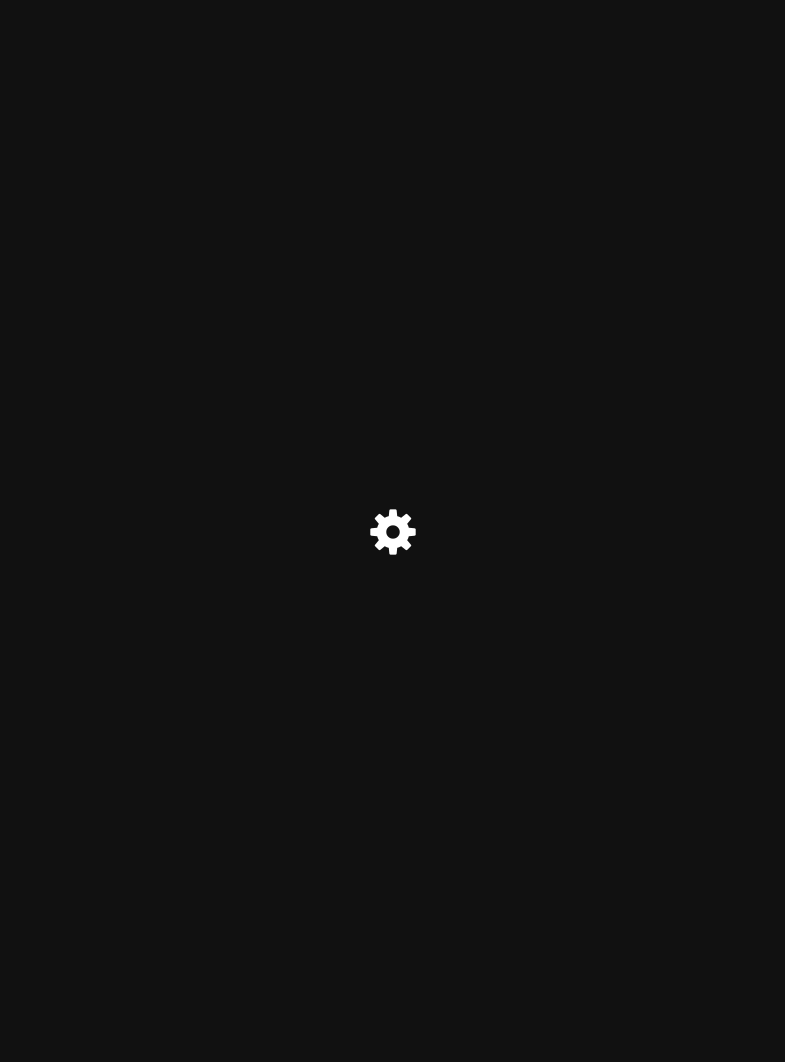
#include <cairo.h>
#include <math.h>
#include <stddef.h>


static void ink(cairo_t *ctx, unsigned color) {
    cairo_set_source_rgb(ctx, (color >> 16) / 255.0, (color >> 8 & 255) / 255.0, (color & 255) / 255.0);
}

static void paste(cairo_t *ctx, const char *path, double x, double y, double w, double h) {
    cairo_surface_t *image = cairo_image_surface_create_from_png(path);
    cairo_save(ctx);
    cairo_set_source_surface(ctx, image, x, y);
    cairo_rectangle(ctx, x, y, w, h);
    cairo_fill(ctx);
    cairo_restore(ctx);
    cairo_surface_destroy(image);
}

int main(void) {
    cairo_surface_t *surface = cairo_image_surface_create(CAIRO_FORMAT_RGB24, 785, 1062);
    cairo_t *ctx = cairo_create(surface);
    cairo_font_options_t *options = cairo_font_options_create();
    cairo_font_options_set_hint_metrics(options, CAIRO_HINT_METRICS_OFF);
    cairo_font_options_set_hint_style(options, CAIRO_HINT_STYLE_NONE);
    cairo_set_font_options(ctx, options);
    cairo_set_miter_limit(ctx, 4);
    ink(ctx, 0x111111);
    cairo_paint(ctx);
    paste(ctx, "media/1.png", 370, 509, 46, 46);
    cairo_surface_write_to_png(surface, "image.png");
    cairo_font_options_destroy(options);
    cairo_destroy(ctx);
    cairo_surface_destroy(surface);
    return 0;
}
